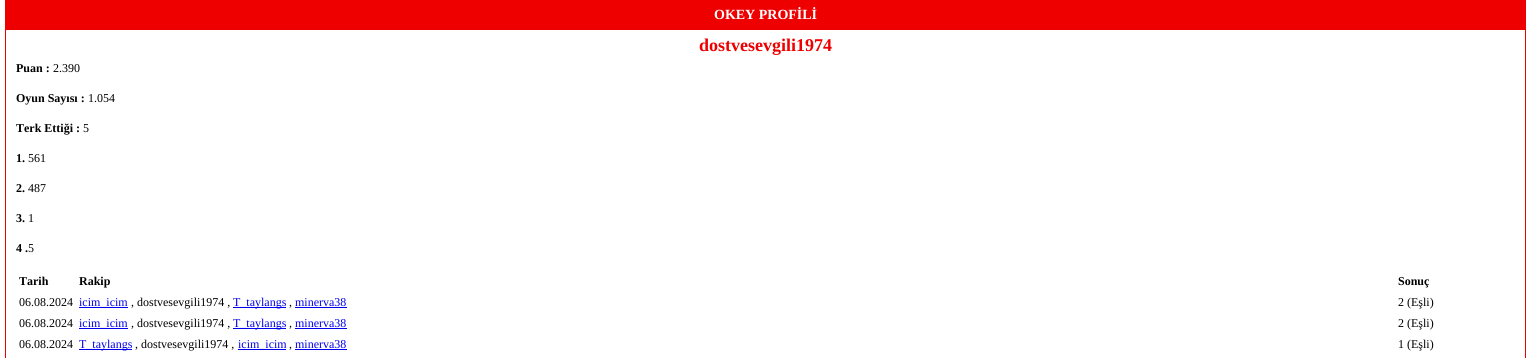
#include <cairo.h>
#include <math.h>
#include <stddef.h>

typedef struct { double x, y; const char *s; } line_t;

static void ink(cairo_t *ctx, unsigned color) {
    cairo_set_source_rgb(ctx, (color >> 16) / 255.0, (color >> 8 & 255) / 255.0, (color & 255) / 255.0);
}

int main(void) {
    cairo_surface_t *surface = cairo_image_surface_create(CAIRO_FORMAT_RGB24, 1531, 358);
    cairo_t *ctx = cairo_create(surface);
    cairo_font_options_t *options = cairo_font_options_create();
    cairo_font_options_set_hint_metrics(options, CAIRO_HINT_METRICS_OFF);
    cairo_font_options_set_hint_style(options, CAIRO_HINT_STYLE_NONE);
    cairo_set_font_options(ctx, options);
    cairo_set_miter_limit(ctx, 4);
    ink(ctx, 0xFFFFFF);
    cairo_paint(ctx);
    ink(ctx, 0xEE0000);
    cairo_rectangle(ctx, 5, 0, 1521, 29);
    cairo_fill(ctx);
    cairo_select_font_face(ctx, "Liberation Serif", CAIRO_FONT_SLANT_NORMAL, CAIRO_FONT_WEIGHT_BOLD);
    cairo_set_font_size(ctx, 14);
    ink(ctx, 0xFFFFFF);
    cairo_move_to(ctx, 714, 19);
    cairo_show_text(ctx, "OKEY PROFİLİ");
    cairo_rectangle(ctx, 5.5, 29.5, 1520, 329);
    ink(ctx, 0xEE0000);
    cairo_set_line_width(ctx, 1);
    cairo_stroke(ctx);
    cairo_set_font_size(ctx, 18);
    cairo_move_to(ctx, 699, 51);
    cairo_show_text(ctx, "dostvesevgili1974");
    cairo_set_font_size(ctx, 12);
    ink(ctx, 0x000000);
    cairo_move_to(ctx, 16, 72);
    cairo_show_text(ctx, "Puan :");
    cairo_select_font_face(ctx, "Liberation Serif", CAIRO_FONT_SLANT_NORMAL, CAIRO_FONT_WEIGHT_NORMAL);
    cairo_move_to(ctx, 53, 72);
    cairo_show_text(ctx, "2.390");
    cairo_select_font_face(ctx, "Liberation Serif", CAIRO_FONT_SLANT_NORMAL, CAIRO_FONT_WEIGHT_BOLD);
    cairo_move_to(ctx, 16, 102);
    cairo_show_text(ctx, "Oyun Sayısı :");
    cairo_select_font_face(ctx, "Liberation Serif", CAIRO_FONT_SLANT_NORMAL, CAIRO_FONT_WEIGHT_NORMAL);
    cairo_move_to(ctx, 88, 102);
    cairo_show_text(ctx, "1.054");
    cairo_select_font_face(ctx, "Liberation Serif", CAIRO_FONT_SLANT_NORMAL, CAIRO_FONT_WEIGHT_BOLD);
    cairo_move_to(ctx, 16, 132);
    cairo_show_text(ctx, "Terk Ettiği :");
    cairo_select_font_face(ctx, "Liberation Serif", CAIRO_FONT_SLANT_NORMAL, CAIRO_FONT_WEIGHT_NORMAL);
    cairo_move_to(ctx, 83, 132);
    cairo_show_text(ctx, "5");
    cairo_select_font_face(ctx, "Liberation Serif", CAIRO_FONT_SLANT_NORMAL, CAIRO_FONT_WEIGHT_BOLD);
    cairo_move_to(ctx, 16, 162);
    cairo_show_text(ctx, "1.");
    cairo_select_font_face(ctx, "Liberation Serif", CAIRO_FONT_SLANT_NORMAL, CAIRO_FONT_WEIGHT_NORMAL);
    cairo_move_to(ctx, 28, 162);
    cairo_show_text(ctx, "561");
    cairo_select_font_face(ctx, "Liberation Serif", CAIRO_FONT_SLANT_NORMAL, CAIRO_FONT_WEIGHT_BOLD);
    cairo_move_to(ctx, 16, 192);
    cairo_show_text(ctx, "2.");
    cairo_select_font_face(ctx, "Liberation Serif", CAIRO_FONT_SLANT_NORMAL, CAIRO_FONT_WEIGHT_NORMAL);
    cairo_move_to(ctx, 28, 192);
    cairo_show_text(ctx, "487");
    cairo_select_font_face(ctx, "Liberation Serif", CAIRO_FONT_SLANT_NORMAL, CAIRO_FONT_WEIGHT_BOLD);
    cairo_move_to(ctx, 16, 222);
    cairo_show_text(ctx, "3.");
    cairo_select_font_face(ctx, "Liberation Serif", CAIRO_FONT_SLANT_NORMAL, CAIRO_FONT_WEIGHT_NORMAL);
    cairo_move_to(ctx, 28, 222);
    cairo_show_text(ctx, "1");
    cairo_select_font_face(ctx, "Liberation Serif", CAIRO_FONT_SLANT_NORMAL, CAIRO_FONT_WEIGHT_BOLD);
    cairo_move_to(ctx, 16, 252);
    cairo_show_text(ctx, "4 .");
    cairo_select_font_face(ctx, "Liberation Serif", CAIRO_FONT_SLANT_NORMAL, CAIRO_FONT_WEIGHT_NORMAL);
    cairo_move_to(ctx, 28, 252);
    cairo_show_text(ctx, "5");
    cairo_select_font_face(ctx, "Liberation Serif", CAIRO_FONT_SLANT_NORMAL, CAIRO_FONT_WEIGHT_BOLD);
    {
        static const line_t items[] = {
            {19, 285, "Tarih"},
            {79, 285, "Rakip"},
            {1398, 285, "Sonuç"},
        };
        for (size_t i = 0; i < sizeof items / sizeof *items; i++) {
            cairo_move_to(ctx, items[i].x, items[i].y);
            cairo_show_text(ctx, items[i].s);
        }
    }
    cairo_select_font_face(ctx, "Liberation Serif", CAIRO_FONT_SLANT_NORMAL, CAIRO_FONT_WEIGHT_NORMAL);
    cairo_move_to(ctx, 19, 306);
    cairo_show_text(ctx, "06.08.2024");
    ink(ctx, 0x0000EE);
    cairo_rectangle(ctx, 79, 307, 49, 1);
    cairo_fill(ctx);
    cairo_move_to(ctx, 79, 306);
    cairo_show_text(ctx, "icim_icim");
    ink(ctx, 0x000000);
    cairo_move_to(ctx, 131, 306);
    cairo_show_text(ctx, ", dostvesevgili1974 ,");
    ink(ctx, 0x0000EE);
    cairo_rectangle(ctx, 233, 307, 53, 1);
    cairo_fill(ctx);
    cairo_move_to(ctx, 233, 306);
    cairo_show_text(ctx, "T_taylangs");
    ink(ctx, 0x000000);
    cairo_move_to(ctx, 289, 306);
    cairo_show_text(ctx, ",");
    ink(ctx, 0x0000EE);
    cairo_move_to(ctx, 295, 306);
    cairo_show_text(ctx, "minerva38");
    cairo_rectangle(ctx, 295, 307, 52, 1);
    cairo_fill(ctx);
    ink(ctx, 0x000000);
    cairo_move_to(ctx, 1398, 306);
    cairo_show_text(ctx, "2 (Eşli)");
    cairo_move_to(ctx, 19, 327);
    cairo_show_text(ctx, "06.08.2024");
    ink(ctx, 0x0000EE);
    cairo_rectangle(ctx, 79, 328, 49, 1);
    cairo_fill(ctx);
    cairo_move_to(ctx, 79, 327);
    cairo_show_text(ctx, "icim_icim");
    ink(ctx, 0x000000);
    cairo_move_to(ctx, 131, 327);
    cairo_show_text(ctx, ", dostvesevgili1974 ,");
    ink(ctx, 0x0000EE);
    cairo_rectangle(ctx, 233, 328, 53, 1);
    cairo_fill(ctx);
    cairo_move_to(ctx, 233, 327);
    cairo_show_text(ctx, "T_taylangs");
    ink(ctx, 0x000000);
    cairo_move_to(ctx, 289, 327);
    cairo_show_text(ctx, ",");
    ink(ctx, 0x0000EE);
    cairo_move_to(ctx, 295, 327);
    cairo_show_text(ctx, "minerva38");
    cairo_rectangle(ctx, 295, 328, 52, 1);
    cairo_fill(ctx);
    ink(ctx, 0x000000);
    cairo_move_to(ctx, 1398, 327);
    cairo_show_text(ctx, "2 (Eşli)");
    cairo_move_to(ctx, 19, 348);
    cairo_show_text(ctx, "06.08.2024");
    ink(ctx, 0x0000EE);
    cairo_rectangle(ctx, 79, 349, 53, 1);
    cairo_fill(ctx);
    cairo_move_to(ctx, 79, 348);
    cairo_show_text(ctx, "T_taylangs");
    ink(ctx, 0x000000);
    cairo_move_to(ctx, 135, 348);
    cairo_show_text(ctx, ", dostvesevgili1974 ,");
    ink(ctx, 0x0000EE);
    cairo_rectangle(ctx, 238, 349, 48, 1);
    cairo_fill(ctx);
    cairo_move_to(ctx, 238, 348);
    cairo_show_text(ctx, "icim_icim");
    ink(ctx, 0x000000);
    cairo_move_to(ctx, 289, 348);
    cairo_show_text(ctx, ",");
    ink(ctx, 0x0000EE);
    cairo_move_to(ctx, 295, 348);
    cairo_show_text(ctx, "minerva38");
    cairo_rectangle(ctx, 295, 349, 52, 1);
    cairo_fill(ctx);
    ink(ctx, 0x000000);
    cairo_move_to(ctx, 1398, 348);
    cairo_show_text(ctx, "1 (Eşli)");
    cairo_surface_write_to_png(surface, "image.png");
    cairo_font_options_destroy(options);
    cairo_destroy(ctx);
    cairo_surface_destroy(surface);
    return 0;
}
